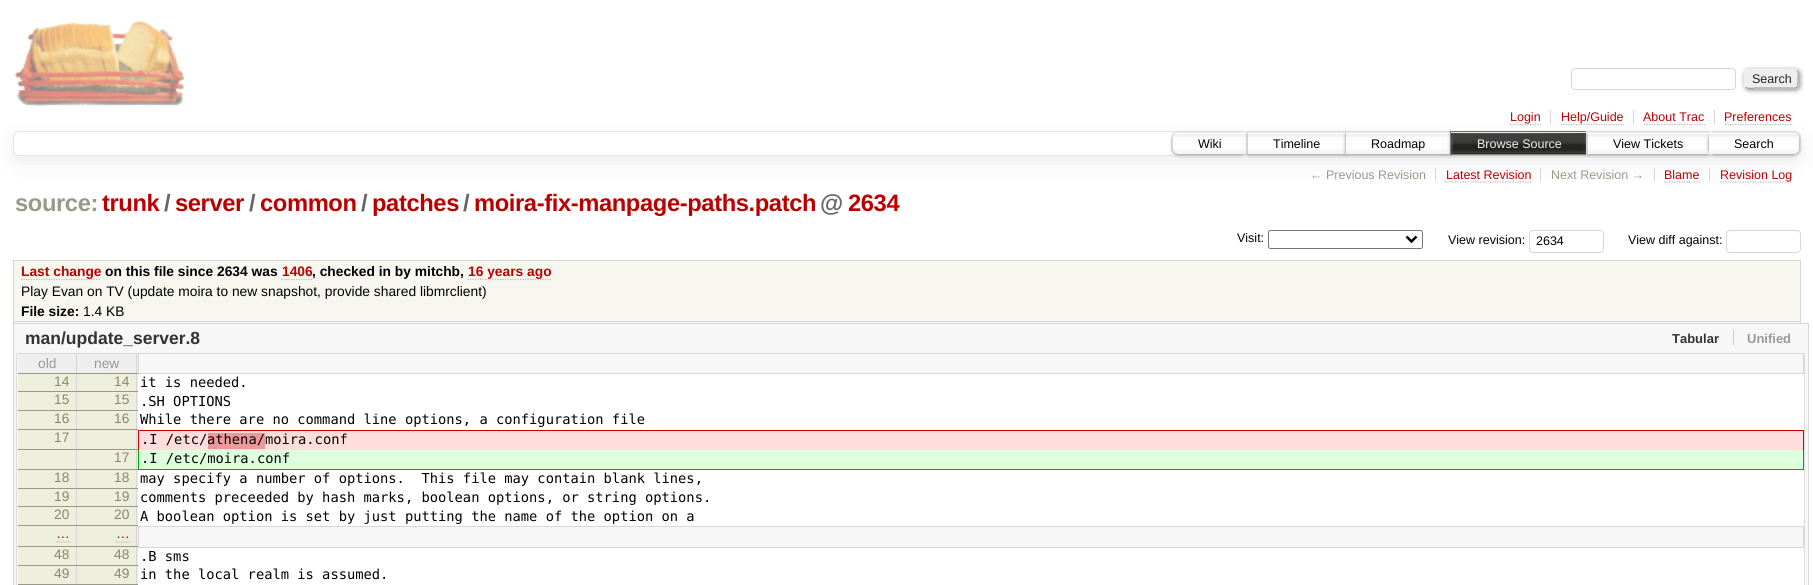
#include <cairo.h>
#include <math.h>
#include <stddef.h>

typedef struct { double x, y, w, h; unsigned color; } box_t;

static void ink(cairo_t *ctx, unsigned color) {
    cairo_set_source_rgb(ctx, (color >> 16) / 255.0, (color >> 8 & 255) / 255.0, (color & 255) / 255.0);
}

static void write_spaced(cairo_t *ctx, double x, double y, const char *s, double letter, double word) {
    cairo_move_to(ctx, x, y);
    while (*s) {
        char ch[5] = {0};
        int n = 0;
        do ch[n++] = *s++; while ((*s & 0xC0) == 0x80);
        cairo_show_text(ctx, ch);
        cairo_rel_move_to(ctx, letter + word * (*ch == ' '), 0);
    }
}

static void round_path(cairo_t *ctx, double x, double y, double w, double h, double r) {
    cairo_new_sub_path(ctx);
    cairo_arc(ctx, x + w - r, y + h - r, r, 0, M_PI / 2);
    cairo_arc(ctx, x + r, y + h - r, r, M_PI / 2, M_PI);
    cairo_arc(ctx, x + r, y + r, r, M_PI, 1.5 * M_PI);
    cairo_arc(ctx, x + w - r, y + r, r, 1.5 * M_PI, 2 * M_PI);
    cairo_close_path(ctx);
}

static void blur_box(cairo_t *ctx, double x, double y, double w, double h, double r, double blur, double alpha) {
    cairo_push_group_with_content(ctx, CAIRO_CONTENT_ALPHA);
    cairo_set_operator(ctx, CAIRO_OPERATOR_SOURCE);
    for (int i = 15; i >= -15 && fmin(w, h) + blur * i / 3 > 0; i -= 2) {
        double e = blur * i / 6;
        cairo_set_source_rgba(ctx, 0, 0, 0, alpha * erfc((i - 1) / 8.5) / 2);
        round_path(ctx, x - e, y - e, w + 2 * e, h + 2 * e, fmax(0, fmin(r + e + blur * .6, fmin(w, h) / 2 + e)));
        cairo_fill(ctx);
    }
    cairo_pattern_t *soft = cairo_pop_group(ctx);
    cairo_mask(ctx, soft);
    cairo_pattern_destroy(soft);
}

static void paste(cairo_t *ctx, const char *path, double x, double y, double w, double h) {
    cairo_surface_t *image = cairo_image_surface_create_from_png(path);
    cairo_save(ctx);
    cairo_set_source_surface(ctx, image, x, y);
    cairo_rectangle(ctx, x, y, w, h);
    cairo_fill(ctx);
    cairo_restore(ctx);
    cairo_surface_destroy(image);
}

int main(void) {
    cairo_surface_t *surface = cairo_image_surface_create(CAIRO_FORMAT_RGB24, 1813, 585);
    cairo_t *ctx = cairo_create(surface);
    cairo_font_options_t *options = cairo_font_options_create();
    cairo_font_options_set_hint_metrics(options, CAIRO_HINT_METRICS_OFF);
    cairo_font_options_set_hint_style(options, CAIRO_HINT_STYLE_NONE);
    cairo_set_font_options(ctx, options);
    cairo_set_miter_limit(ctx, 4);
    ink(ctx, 0xFFFFFF);
    cairo_paint(ctx);
    paste(ctx, "media/1.png", 15, 21, 169, 86);
    round_path(ctx, 1571.5, 68.5, 164, 21, 3.5);
    ink(ctx, 0xD7D7D7);
    cairo_set_line_width(ctx, 1);
    cairo_stroke(ctx);
    ink(ctx, 0x888888);
    blur_box(ctx, 1745, 70, 55, 20, 4, 2.5, 1);
    ink(ctx, 0xEEEEEE);
    round_path(ctx, 1744, 69, 55, 20, 4);
    cairo_fill(ctx);
    cairo_new_path(ctx);
    cairo_move_to(ctx, 1797, 70.5);
    cairo_curve_to(ctx, 1799, 72.5, 1798, 76.5, 1798, 79);
    cairo_curve_to(ctx, 1798, 89.5, 1798.5, 88, 1787, 88);
    cairo_line_to(ctx, 1755.5, 88);
    cairo_curve_to(ctx, 1755, 88, 1747.5, 89.5, 1745.5, 87);
    ink(ctx, 0x9F9F9F);
    cairo_set_line_width(ctx, 1.2);
    cairo_stroke(ctx);
    cairo_new_path(ctx);
    cairo_move_to(ctx, 1745.5, 87);
    cairo_curve_to(ctx, 1743.5, 85, 1744.5, 81, 1744.5, 79);
    cairo_curve_to(ctx, 1744.5, 68, 1744, 69.5, 1755.5, 69.5);
    cairo_line_to(ctx, 1787, 69.5);
    cairo_curve_to(ctx, 1787.5, 69.5, 1795, 68, 1797, 70.5);
    ink(ctx, 0xEEEEEE);
    cairo_stroke(ctx);
    cairo_select_font_face(ctx, "Liberation Sans", CAIRO_FONT_SLANT_NORMAL, CAIRO_FONT_WEIGHT_NORMAL);
    cairo_set_font_size(ctx, 12.5);
    ink(ctx, 0x222222);
    cairo_move_to(ctx, 1752, 83);
    cairo_show_text(ctx, "Search");
    cairo_save(ctx);
    cairo_set_fill_rule(ctx, CAIRO_FILL_RULE_EVEN_ODD);
    cairo_new_path(ctx);
    cairo_move_to(ctx, 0, 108);
    cairo_line_to(ctx, 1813, 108);
    cairo_line_to(ctx, 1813, 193);
    cairo_line_to(ctx, 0, 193);
    cairo_close_path(ctx);
    cairo_move_to(ctx, 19, 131);
    cairo_line_to(ctx, 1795, 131);
    cairo_curve_to(ctx, 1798.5, 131, 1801, 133.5, 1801, 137);
    cairo_line_to(ctx, 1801, 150);
    cairo_curve_to(ctx, 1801, 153.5, 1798.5, 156, 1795, 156);
    cairo_line_to(ctx, 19, 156);
    cairo_curve_to(ctx, 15.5, 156, 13, 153.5, 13, 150);
    cairo_line_to(ctx, 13, 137);
    cairo_curve_to(ctx, 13, 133.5, 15.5, 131, 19, 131);
    cairo_close_path(ctx);
    cairo_clip(ctx);
    ink(ctx, 0xEEEEEE);
    blur_box(ctx, 13, 138, 1788, 25, 6, 9.5, 1);
    cairo_restore(ctx);
    ink(ctx, 0xD7D7D7);
    cairo_rectangle(ctx, 1550, 110, 1, 14);
    cairo_fill(ctx);
    cairo_new_path(ctx);
    cairo_move_to(ctx, 1510, 124.5);
    cairo_line_to(ctx, 1541, 124.5);
    ink(ctx, 0xBBBBBB);
    cairo_set_dash(ctx, (double[]){1.25, 1.25}, 2, 0);
    cairo_stroke(ctx);
    ink(ctx, 0xBB0000);
    cairo_move_to(ctx, 1510, 121);
    cairo_show_text(ctx, "Login");
    ink(ctx, 0xD7D7D7);
    cairo_rectangle(ctx, 1633, 110, 1, 14);
    cairo_fill(ctx);
    cairo_new_path(ctx);
    cairo_move_to(ctx, 1561, 124.5);
    cairo_line_to(ctx, 1624, 124.5);
    ink(ctx, 0xBBBBBB);
    cairo_stroke(ctx);
    ink(ctx, 0xBB0000);
    cairo_move_to(ctx, 1561, 121);
    cairo_show_text(ctx, "Help/Guide");
    ink(ctx, 0xD7D7D7);
    cairo_rectangle(ctx, 1714, 110, 1, 14);
    cairo_fill(ctx);
    ink(ctx, 0xBB0000);
    cairo_move_to(ctx, 1643, 121);
    cairo_show_text(ctx, "About Trac");
    cairo_new_path(ctx);
    cairo_move_to(ctx, 1644, 124.5);
    cairo_line_to(ctx, 1705, 124.5);
    ink(ctx, 0xBBBBBB);
    cairo_stroke(ctx);
    ink(ctx, 0xBB0000);
    cairo_move_to(ctx, 1724, 121);
    cairo_show_text(ctx, "Preferences");
    cairo_new_path(ctx);
    cairo_move_to(ctx, 1725, 124.5);
    cairo_line_to(ctx, 1792.5, 124.5);
    ink(ctx, 0xBBBBBB);
    cairo_stroke(ctx);
    round_path(ctx, 13.5, 131.5, 1787, 24, 5.5);
    ink(ctx, 0xE4E4E4);
    cairo_set_line_width(ctx, 1);
    cairo_set_dash(ctx, NULL, 0, 0);
    cairo_stroke(ctx);
    ink(ctx, 0xFFFFFF);
    cairo_new_path(ctx);
    cairo_move_to(ctx, 1177, 131);
    cairo_line_to(ctx, 1248, 131);
    cairo_line_to(ctx, 1248, 155);
    cairo_line_to(ctx, 1177, 155);
    cairo_curve_to(ctx, 1173.5, 155, 1171, 152.5, 1171, 149);
    cairo_line_to(ctx, 1171, 137);
    cairo_curve_to(ctx, 1171, 133.5, 1173.5, 131, 1177, 131);
    cairo_close_path(ctx);
    cairo_fill(ctx);
    paste(ctx, "media/2.png", 1172, 134, 74, 21);
    cairo_new_path(ctx);
    cairo_move_to(ctx, 1177, 131.5);
    cairo_line_to(ctx, 1247.5, 131.5);
    cairo_line_to(ctx, 1247.5, 154.5);
    cairo_line_to(ctx, 1177, 154.5);
    cairo_curve_to(ctx, 1174, 154.5, 1171.5, 152, 1171.5, 149);
    cairo_line_to(ctx, 1171.5, 137);
    cairo_curve_to(ctx, 1171.5, 134, 1174, 131.5, 1177, 131.5);
    cairo_close_path(ctx);
    ink(ctx, 0xE4E4E4);
    cairo_stroke(ctx);
    cairo_save(ctx);
    cairo_set_fill_rule(ctx, CAIRO_FILL_RULE_EVEN_ODD);
    cairo_new_path(ctx);
    cairo_move_to(ctx, 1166, 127);
    cairo_line_to(ctx, 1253, 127);
    cairo_line_to(ctx, 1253, 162);
    cairo_line_to(ctx, 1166, 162);
    cairo_close_path(ctx);
    cairo_move_to(ctx, 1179, 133);
    cairo_line_to(ctx, 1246, 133);
    cairo_line_to(ctx, 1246, 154);
    cairo_line_to(ctx, 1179, 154);
    cairo_curve_to(ctx, 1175.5, 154, 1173, 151.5, 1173, 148);
    cairo_line_to(ctx, 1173, 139);
    cairo_curve_to(ctx, 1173, 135.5, 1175.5, 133, 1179, 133);
    cairo_close_path(ctx);
    cairo_clip(ctx);
    ink(ctx, 0x999999);
    blur_box(ctx, 1173, 134, 73, 21, 6, 2, 1);
    cairo_restore(ctx);
    ink(ctx, 0x000000);
    cairo_move_to(ctx, 1198, 148);
    cairo_show_text(ctx, "Wiki");
    ink(ctx, 0xFFFFFF);
    cairo_rectangle(ctx, 1247, 132, 3, 22);
    cairo_fill(ctx);
    paste(ctx, "media/3.png", 1247, 134, 98, 20);
    cairo_rectangle(ctx, 1246.5, 131.5, 99, 23);
    ink(ctx, 0xE4E4E4);
    cairo_stroke(ctx);
    cairo_save(ctx);
    cairo_set_fill_rule(ctx, CAIRO_FILL_RULE_EVEN_ODD);
    cairo_new_path(ctx);
    cairo_move_to(ctx, 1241, 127);
    cairo_line_to(ctx, 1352, 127);
    cairo_line_to(ctx, 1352, 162);
    cairo_line_to(ctx, 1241, 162);
    cairo_close_path(ctx);
    cairo_move_to(ctx, 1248, 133);
    cairo_line_to(ctx, 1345, 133);
    cairo_line_to(ctx, 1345, 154);
    cairo_line_to(ctx, 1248, 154);
    cairo_close_path(ctx);
    cairo_clip(ctx);
    ink(ctx, 0x999999);
    blur_box(ctx, 1248, 134, 97, 21, 0, 2, 1);
    cairo_restore(ctx);
    ink(ctx, 0x000000);
    cairo_move_to(ctx, 1273, 148);
    cairo_show_text(ctx, "Timeline");
    ink(ctx, 0xFFFFFF);
    cairo_rectangle(ctx, 1346, 132, 3, 22);
    cairo_fill(ctx);
    paste(ctx, "media/4.png", 1346, 134, 104, 20);
    cairo_rectangle(ctx, 1345.5, 131.5, 105, 23);
    ink(ctx, 0xE4E4E4);
    cairo_stroke(ctx);
    cairo_save(ctx);
    cairo_set_fill_rule(ctx, CAIRO_FILL_RULE_EVEN_ODD);
    cairo_new_path(ctx);
    cairo_move_to(ctx, 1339, 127);
    cairo_line_to(ctx, 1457, 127);
    cairo_line_to(ctx, 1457, 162);
    cairo_line_to(ctx, 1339, 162);
    cairo_close_path(ctx);
    cairo_move_to(ctx, 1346, 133);
    cairo_line_to(ctx, 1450, 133);
    cairo_line_to(ctx, 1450, 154);
    cairo_line_to(ctx, 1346, 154);
    cairo_close_path(ctx);
    cairo_clip(ctx);
    ink(ctx, 0x999999);
    blur_box(ctx, 1346, 134, 104, 21, 0, 2, 1);
    cairo_restore(ctx);
    ink(ctx, 0x000000);
    cairo_move_to(ctx, 1371, 148);
    cairo_show_text(ctx, "Roadmap");
    ink(ctx, 0xFFFFFF);
    cairo_rectangle(ctx, 1451, 132, 1, 1);
    cairo_fill(ctx);
    cairo_rectangle(ctx, 1450.5, 131.5, 137, 23);
    ink(ctx, 0x666666);
    cairo_stroke(ctx);
    ink(ctx, 0x999999);
    blur_box(ctx, 1451, 134, 135, 21, 0, 2, 1);
    ink(ctx, 0x000000);
    cairo_rectangle(ctx, 1451, 133, 135, 21);
    cairo_fill(ctx);
    paste(ctx, "media/5.png", 1451, 132, 135, 22);
    ink(ctx, 0xEEEEEE);
    cairo_move_to(ctx, 1477, 148);
    cairo_show_text(ctx, "Browse Source");
    ink(ctx, 0xFFFFFF);
    cairo_rectangle(ctx, 1587, 132, 3, 22);
    cairo_fill(ctx);
    paste(ctx, "media/6.png", 1587, 134, 121, 20);
    cairo_rectangle(ctx, 1586.5, 131.5, 122, 23);
    ink(ctx, 0xE4E4E4);
    cairo_stroke(ctx);
    cairo_save(ctx);
    cairo_set_fill_rule(ctx, CAIRO_FILL_RULE_EVEN_ODD);
    cairo_new_path(ctx);
    cairo_move_to(ctx, 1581, 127);
    cairo_line_to(ctx, 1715, 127);
    cairo_line_to(ctx, 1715, 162);
    cairo_line_to(ctx, 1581, 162);
    cairo_close_path(ctx);
    cairo_move_to(ctx, 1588, 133);
    cairo_line_to(ctx, 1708, 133);
    cairo_line_to(ctx, 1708, 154);
    cairo_line_to(ctx, 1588, 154);
    cairo_close_path(ctx);
    cairo_clip(ctx);
    ink(ctx, 0x999999);
    blur_box(ctx, 1588, 134, 120, 21, 0, 2, 1);
    cairo_restore(ctx);
    ink(ctx, 0x000000);
    cairo_move_to(ctx, 1613, 148);
    cairo_show_text(ctx, "View Tickets");
    ink(ctx, 0xFFFFFF);
    cairo_new_path(ctx);
    cairo_move_to(ctx, 1708, 131);
    cairo_line_to(ctx, 1794, 131);
    cairo_curve_to(ctx, 1797.5, 131, 1800, 133.5, 1800, 137);
    cairo_line_to(ctx, 1800, 149);
    cairo_curve_to(ctx, 1800, 152.5, 1797.5, 155, 1794, 155);
    cairo_line_to(ctx, 1708, 155);
    cairo_close_path(ctx);
    cairo_fill(ctx);
    paste(ctx, "media/7.png", 1709, 134, 91, 21);
    cairo_new_path(ctx);
    cairo_move_to(ctx, 1708.5, 131.5);
    cairo_line_to(ctx, 1794, 131.5);
    cairo_curve_to(ctx, 1797, 131.5, 1799.5, 134, 1799.5, 137);
    cairo_line_to(ctx, 1799.5, 149);
    cairo_curve_to(ctx, 1799.5, 152, 1797, 154.5, 1794, 154.5);
    cairo_line_to(ctx, 1708.5, 154.5);
    cairo_close_path(ctx);
    ink(ctx, 0xE4E4E4);
    cairo_stroke(ctx);
    cairo_save(ctx);
    cairo_set_fill_rule(ctx, CAIRO_FILL_RULE_EVEN_ODD);
    cairo_new_path(ctx);
    cairo_move_to(ctx, 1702, 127);
    cairo_line_to(ctx, 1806, 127);
    cairo_line_to(ctx, 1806, 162);
    cairo_line_to(ctx, 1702, 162);
    cairo_close_path(ctx);
    cairo_move_to(ctx, 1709, 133);
    cairo_line_to(ctx, 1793, 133);
    cairo_curve_to(ctx, 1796.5, 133, 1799, 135.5, 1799, 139);
    cairo_line_to(ctx, 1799, 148);
    cairo_curve_to(ctx, 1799, 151.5, 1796.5, 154, 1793, 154);
    cairo_line_to(ctx, 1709, 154);
    cairo_close_path(ctx);
    cairo_clip(ctx);
    ink(ctx, 0x999999);
    blur_box(ctx, 1709, 134, 90, 21, 6, 2, 1);
    cairo_restore(ctx);
    ink(ctx, 0x000000);
    cairo_move_to(ctx, 1734, 148);
    cairo_show_text(ctx, "Search");
    ink(ctx, 0xD7D7D7);
    cairo_rectangle(ctx, 1435, 168, 1, 13);
    cairo_fill(ctx);
    ink(ctx, 0x999988);
    cairo_move_to(ctx, 1310, 179);
    cairo_show_text(ctx, "← Previous Revision");
    ink(ctx, 0xD7D7D7);
    cairo_rectangle(ctx, 1540, 168, 1, 13);
    cairo_fill(ctx);
    ink(ctx, 0xBB0000);
    cairo_move_to(ctx, 1446, 179);
    cairo_show_text(ctx, "Latest Revision");
    cairo_new_path(ctx);
    cairo_move_to(ctx, 1445, 182);
    cairo_line_to(ctx, 1531, 182);
    ink(ctx, 0xBBBBBB);
    cairo_set_line_width(ctx, 1.2);
    cairo_set_dash(ctx, (double[]){1.25, 1.25}, 2, 0);
    cairo_stroke(ctx);
    ink(ctx, 0xD7D7D7);
    cairo_rectangle(ctx, 1654, 168, 1, 13);
    cairo_fill(ctx);
    ink(ctx, 0x999988);
    cairo_move_to(ctx, 1551, 179);
    cairo_show_text(ctx, "Next Revision →");
    ink(ctx, 0xD7D7D7);
    cairo_rectangle(ctx, 1709, 168, 1, 13);
    cairo_fill(ctx);
    ink(ctx, 0xBB0000);
    cairo_move_to(ctx, 1664, 179);
    cairo_show_text(ctx, "Blame");
    cairo_new_path(ctx);
    cairo_move_to(ctx, 1664, 182);
    cairo_line_to(ctx, 1700, 182);
    ink(ctx, 0xBBBBBB);
    cairo_stroke(ctx);
    cairo_new_path(ctx);
    cairo_move_to(ctx, 1720, 182);
    cairo_line_to(ctx, 1792.5, 182);
    cairo_stroke(ctx);
    ink(ctx, 0xBB0000);
    cairo_move_to(ctx, 1720, 179);
    cairo_show_text(ctx, "Revision Log");
    cairo_select_font_face(ctx, "Liberation Sans", CAIRO_FONT_SLANT_NORMAL, CAIRO_FONT_WEIGHT_BOLD);
    cairo_set_font_size(ctx, 23.75);
    ink(ctx, 0x999988);
    write_spaced(ctx, 15, 211, "source:", -0.4, 0);
    ink(ctx, 0xBB0000);
    write_spaced(ctx, 102, 211, "trunk", -0.4, 0);
    ink(ctx, 0x666666);
    write_spaced(ctx, 164, 211, "/", -0.4, 0);
    ink(ctx, 0xBB0000);
    write_spaced(ctx, 175, 211, "server", -0.4, 0);
    ink(ctx, 0x666666);
    write_spaced(ctx, 249, 211, "/", -0.4, 0);
    ink(ctx, 0xBB0000);
    write_spaced(ctx, 260, 211, "common", -0.4, 0);
    ink(ctx, 0x666666);
    write_spaced(ctx, 361, 211, "/", -0.4, 0);
    ink(ctx, 0xBB0000);
    write_spaced(ctx, 372, 211, "patches", -0.4, 0);
    ink(ctx, 0x666666);
    write_spaced(ctx, 463, 211, "/", -0.4, 0);
    ink(ctx, 0xBB0000);
    write_spaced(ctx, 474, 211, "moira-fix-manpage-paths.patch", -0.4, 0);
    ink(ctx, 0x666666);
    write_spaced(ctx, 820, 211, "@", -0.4, 0);
    ink(ctx, 0xBB0000);
    write_spaced(ctx, 848, 211, "2634", -0.4, 0);
    cairo_select_font_face(ctx, "Liberation Sans", CAIRO_FONT_SLANT_NORMAL, CAIRO_FONT_WEIGHT_NORMAL);
    cairo_set_font_size(ctx, 12.5);
    ink(ctx, 0x000000);
    cairo_move_to(ctx, 1237, 242);
    cairo_show_text(ctx, "Visit:");
    round_path(ctx, 1268.5, 230.5, 154, 18, 2);
    ink(ctx, 0x767676);
    cairo_set_line_width(ctx, 1);
    cairo_set_dash(ctx, NULL, 0, 0);
    cairo_stroke(ctx);
    cairo_new_path(ctx);
    cairo_move_to(ctx, 1406.5, 236.5);
    cairo_line_to(ctx, 1411.5, 241.5);
    cairo_line_to(ctx, 1416.5, 236.5);
    ink(ctx, 0x000000);
    cairo_set_line_width(ctx, 2.5);
    cairo_stroke(ctx);
    cairo_move_to(ctx, 1448, 244);
    cairo_show_text(ctx, "View revision:");
    round_path(ctx, 1529.5, 230.5, 74, 22, 3.5);
    ink(ctx, 0xD7D7D7);
    cairo_set_line_width(ctx, 1);
    cairo_stroke(ctx);
    ink(ctx, 0x000000);
    cairo_move_to(ctx, 1536, 245);
    cairo_show_text(ctx, "2634");
    cairo_move_to(ctx, 1628, 244);
    cairo_show_text(ctx, "View diff against:");
    round_path(ctx, 1726.5, 230.5, 74, 22, 3.5);
    ink(ctx, 0xD7D7D7);
    cairo_stroke(ctx);
    {
        static const box_t items[] = {
            {14, 261, 1786, 62, 0xF7F7F0},
            {13, 260, 1788, 1, 0xD7D7D7},
            {1800, 260, 1, 63, 0xD7D7D7},
            {13, 321, 1788, 1, 0xD7D7D7},
            {13, 260, 1, 63, 0xD7D7D7},
        };
        for (size_t i = 0; i < sizeof items / sizeof *items; i++) {
            ink(ctx, items[i].color);
            cairo_rectangle(ctx, items[i].x, items[i].y, items[i].w, items[i].h);
            cairo_fill(ctx);
        }
    }
    cairo_new_path(ctx);
    cairo_move_to(ctx, 21, 279.5);
    cairo_line_to(ctx, 101, 279.5);
    ink(ctx, 0xBBBBBB);
    cairo_set_line_width(ctx, 1.2);
    cairo_set_dash(ctx, (double[]){1.25, 1.25}, 2, 0);
    cairo_stroke(ctx);
    cairo_select_font_face(ctx, "Liberation Sans", CAIRO_FONT_SLANT_NORMAL, CAIRO_FONT_WEIGHT_BOLD);
    cairo_set_font_size(ctx, 13.8);
    ink(ctx, 0xBB0000);
    cairo_move_to(ctx, 21, 276);
    cairo_show_text(ctx, "Last change");
    ink(ctx, 0x000000);
    cairo_move_to(ctx, 105, 276);
    cairo_show_text(ctx, "on this file since 2634 was");
    ink(ctx, 0xBB0000);
    cairo_move_to(ctx, 282, 276);
    cairo_show_text(ctx, "1406");
    cairo_new_path(ctx);
    cairo_move_to(ctx, 281, 279.5);
    cairo_line_to(ctx, 312.5, 279.5);
    ink(ctx, 0xBBBBBB);
    cairo_stroke(ctx);
    ink(ctx, 0x000000);
    cairo_move_to(ctx, 312, 276);
    cairo_show_text(ctx, ", checked in by mitchb,");
    cairo_new_path(ctx);
    cairo_move_to(ctx, 467.5, 279.5);
    cairo_line_to(ctx, 551, 279.5);
    ink(ctx, 0xBBBBBB);
    cairo_stroke(ctx);
    ink(ctx, 0xBB0000);
    cairo_move_to(ctx, 468, 276);
    cairo_show_text(ctx, "16 years ago");
    cairo_select_font_face(ctx, "Liberation Sans", CAIRO_FONT_SLANT_NORMAL, CAIRO_FONT_WEIGHT_NORMAL);
    ink(ctx, 0x000000);
    cairo_move_to(ctx, 21, 296);
    cairo_show_text(ctx, "Play Evan on TV (update moira to new snapshot, provide shared libmrclient)");
    cairo_select_font_face(ctx, "Liberation Sans", CAIRO_FONT_SLANT_NORMAL, CAIRO_FONT_WEIGHT_BOLD);
    cairo_move_to(ctx, 21, 316);
    cairo_show_text(ctx, "File size:");
    cairo_select_font_face(ctx, "Liberation Sans", CAIRO_FONT_SLANT_NORMAL, CAIRO_FONT_WEIGHT_NORMAL);
    cairo_move_to(ctx, 83, 316);
    cairo_show_text(ctx, "1.4 KB");
    ink(ctx, 0xF7F7F7);
    cairo_rectangle(ctx, 13.5, 323.5, 1795, 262);
    cairo_fill_preserve(ctx);
    ink(ctx, 0xD7D7D7);
    cairo_set_line_width(ctx, 1);
    cairo_set_dash(ctx, NULL, 0, 0);
    cairo_stroke(ctx);
    cairo_select_font_face(ctx, "Liberation Sans", CAIRO_FONT_SLANT_NORMAL, CAIRO_FONT_WEIGHT_BOLD);
    cairo_set_font_size(ctx, 17.5);
    ink(ctx, 0x333333);
    cairo_move_to(ctx, 25, 344);
    cairo_show_text(ctx, "man/update_server.8");
    cairo_set_font_size(ctx, 13);
    cairo_move_to(ctx, 1672, 343);
    cairo_show_text(ctx, "Tabular");
    ink(ctx, 0x999999);
    cairo_move_to(ctx, 1747, 343);
    cairo_show_text(ctx, "Unified");
    {
        static const box_t items[] = {
            {1733, 330, 1, 15, 0xCCCCCC},
            {1804, 353, 1, 232, 0xDDDDDD},
            {16, 353, 1, 232, 0xDDDDDD},
            {18, 354, 120, 19, 0xEEEEEE},
            {18, 353, 120, 1, 0xD7D7D7},
            {76, 353, 1, 21, 0xD7D7D7},
            {18, 373, 60, 1, 0x999988},
        };
        for (size_t i = 0; i < sizeof items / sizeof *items; i++) {
            ink(ctx, items[i].color);
            cairo_rectangle(ctx, items[i].x, items[i].y, items[i].w, items[i].h);
            cairo_fill(ctx);
        }
    }
    cairo_select_font_face(ctx, "Liberation Sans", CAIRO_FONT_SLANT_NORMAL, CAIRO_FONT_WEIGHT_NORMAL);
    cairo_set_font_size(ctx, 13.75);
    ink(ctx, 0x999999);
    cairo_move_to(ctx, 38, 368);
    cairo_show_text(ctx, "old");
    ink(ctx, 0xD7D7D7);
    cairo_rectangle(ctx, 136, 353, 1, 21);
    cairo_fill(ctx);
    ink(ctx, 0x999988);
    cairo_rectangle(ctx, 78, 373, 60, 1);
    cairo_fill(ctx);
    ink(ctx, 0x999999);
    cairo_move_to(ctx, 94, 368);
    cairo_show_text(ctx, "new");
    cairo_rectangle(ctx, 138.5, 353.5, 1665, 20);
    ink(ctx, 0xD7D7D7);
    cairo_stroke(ctx);
    {
        static const box_t items[] = {
            {18, 374, 120, 19, 0xEEEEDD},
            {76, 374, 1, 19, 0xD7D7D7},
            {18, 391, 60, 1, 0x999988},
        };
        for (size_t i = 0; i < sizeof items / sizeof *items; i++) {
            ink(ctx, items[i].color);
            cairo_rectangle(ctx, items[i].x, items[i].y, items[i].w, items[i].h);
            cairo_fill(ctx);
        }
    }
    ink(ctx, 0x888866);
    cairo_move_to(ctx, 54, 386);
    cairo_show_text(ctx, "14");
    ink(ctx, 0xD7D7D7);
    cairo_rectangle(ctx, 136, 374, 1, 19);
    cairo_fill(ctx);
    ink(ctx, 0x999988);
    cairo_rectangle(ctx, 78, 391, 60, 1);
    cairo_fill(ctx);
    ink(ctx, 0x888866);
    cairo_move_to(ctx, 114, 386);
    cairo_show_text(ctx, "14");
    ink(ctx, 0xFFFFFF);
    cairo_rectangle(ctx, 138, 374, 1666, 56);
    cairo_fill(ctx);
    cairo_select_font_face(ctx, "DejaVu Sans Mono", CAIRO_FONT_SLANT_NORMAL, CAIRO_FONT_WEIGHT_NORMAL);
    ink(ctx, 0x000000);
    cairo_move_to(ctx, 140, 387);
    cairo_show_text(ctx, "it is needed.");
    {
        static const box_t items[] = {
            {18, 393, 120, 17, 0xEEEEDD},
            {76, 393, 1, 18, 0xD7D7D7},
            {18, 410, 60, 1, 0x999988},
        };
        for (size_t i = 0; i < sizeof items / sizeof *items; i++) {
            ink(ctx, items[i].color);
            cairo_rectangle(ctx, items[i].x, items[i].y, items[i].w, items[i].h);
            cairo_fill(ctx);
        }
    }
    cairo_select_font_face(ctx, "Liberation Sans", CAIRO_FONT_SLANT_NORMAL, CAIRO_FONT_WEIGHT_NORMAL);
    ink(ctx, 0x888866);
    cairo_move_to(ctx, 54, 404);
    cairo_show_text(ctx, "15");
    ink(ctx, 0xD7D7D7);
    cairo_rectangle(ctx, 136, 393, 1, 18);
    cairo_fill(ctx);
    ink(ctx, 0x999988);
    cairo_rectangle(ctx, 78, 410, 60, 1);
    cairo_fill(ctx);
    ink(ctx, 0x888866);
    cairo_move_to(ctx, 114, 404);
    cairo_show_text(ctx, "15");
    cairo_select_font_face(ctx, "DejaVu Sans Mono", CAIRO_FONT_SLANT_NORMAL, CAIRO_FONT_WEIGHT_NORMAL);
    ink(ctx, 0x000000);
    cairo_move_to(ctx, 140, 406);
    cairo_show_text(ctx, ".SH OPTIONS");
    {
        static const box_t items[] = {
            {18, 411, 120, 18, 0xEEEEDD},
            {76, 411, 1, 19, 0xD7D7D7},
            {18, 429, 60, 1, 0x999988},
        };
        for (size_t i = 0; i < sizeof items / sizeof *items; i++) {
            ink(ctx, items[i].color);
            cairo_rectangle(ctx, items[i].x, items[i].y, items[i].w, items[i].h);
            cairo_fill(ctx);
        }
    }
    cairo_select_font_face(ctx, "Liberation Sans", CAIRO_FONT_SLANT_NORMAL, CAIRO_FONT_WEIGHT_NORMAL);
    ink(ctx, 0x888866);
    cairo_move_to(ctx, 54, 423);
    cairo_show_text(ctx, "16");
    ink(ctx, 0xD7D7D7);
    cairo_rectangle(ctx, 136, 411, 1, 19);
    cairo_fill(ctx);
    ink(ctx, 0x999988);
    cairo_rectangle(ctx, 78, 429, 60, 1);
    cairo_fill(ctx);
    ink(ctx, 0x888866);
    cairo_move_to(ctx, 114, 423);
    cairo_show_text(ctx, "16");
    cairo_select_font_face(ctx, "DejaVu Sans Mono", CAIRO_FONT_SLANT_NORMAL, CAIRO_FONT_WEIGHT_NORMAL);
    ink(ctx, 0x000000);
    cairo_move_to(ctx, 140, 424);
    cairo_show_text(ctx, "While there are no command line options, a configuration file");
    {
        static const box_t items[] = {
            {18, 430, 120, 19, 0xEEEEDD},
            {76, 430, 1, 20, 0xD7D7D7},
            {18, 449, 60, 1, 0x999988},
        };
        for (size_t i = 0; i < sizeof items / sizeof *items; i++) {
            ink(ctx, items[i].color);
            cairo_rectangle(ctx, items[i].x, items[i].y, items[i].w, items[i].h);
            cairo_fill(ctx);
        }
    }
    cairo_select_font_face(ctx, "Liberation Sans", CAIRO_FONT_SLANT_NORMAL, CAIRO_FONT_WEIGHT_NORMAL);
    ink(ctx, 0x888866);
    cairo_move_to(ctx, 54, 442);
    cairo_show_text(ctx, "17");
    {
        static const box_t items[] = {
            {136, 430, 1, 20, 0xD7D7D7},
            {78, 449, 60, 1, 0x999988},
            {139, 431, 1664, 19, 0xFFDDDD},
            {138, 430, 1666, 1, 0xCC0000},
            {1803, 430, 1, 20, 0xCC0000},
            {138, 430, 1, 20, 0xCC0000},
        };
        for (size_t i = 0; i < sizeof items / sizeof *items; i++) {
            ink(ctx, items[i].color);
            cairo_rectangle(ctx, items[i].x, items[i].y, items[i].w, items[i].h);
            cairo_fill(ctx);
        }
    }
    cairo_select_font_face(ctx, "DejaVu Sans Mono", CAIRO_FONT_SLANT_NORMAL, CAIRO_FONT_WEIGHT_NORMAL);
    ink(ctx, 0x000000);
    cairo_move_to(ctx, 141, 444);
    cairo_show_text(ctx, ".I /etc/");
    ink(ctx, 0xEE9999);
    cairo_rectangle(ctx, 208, 433, 57, 16);
    cairo_fill(ctx);
    ink(ctx, 0x000000);
    cairo_move_to(ctx, 207, 444);
    cairo_show_text(ctx, "athena/moira.conf");
    {
        static const box_t items[] = {
            {18, 450, 120, 19, 0xEEEEDD},
            {76, 450, 1, 20, 0xD7D7D7},
            {18, 469, 60, 1, 0x999988},
            {136, 450, 1, 20, 0xD7D7D7},
            {78, 469, 60, 1, 0x999988},
        };
        for (size_t i = 0; i < sizeof items / sizeof *items; i++) {
            ink(ctx, items[i].color);
            cairo_rectangle(ctx, items[i].x, items[i].y, items[i].w, items[i].h);
            cairo_fill(ctx);
        }
    }
    cairo_select_font_face(ctx, "Liberation Sans", CAIRO_FONT_SLANT_NORMAL, CAIRO_FONT_WEIGHT_NORMAL);
    ink(ctx, 0x888866);
    cairo_move_to(ctx, 114, 462);
    cairo_show_text(ctx, "17");
    {
        static const box_t items[] = {
            {139, 450, 1664, 19, 0xDDFFDD},
            {1803, 450, 1, 20, 0x00AA00},
            {138, 469, 1666, 1, 0x00AA00},
            {138, 450, 1, 20, 0x00AA00},
        };
        for (size_t i = 0; i < sizeof items / sizeof *items; i++) {
            ink(ctx, items[i].color);
            cairo_rectangle(ctx, items[i].x, items[i].y, items[i].w, items[i].h);
            cairo_fill(ctx);
        }
    }
    cairo_select_font_face(ctx, "DejaVu Sans Mono", CAIRO_FONT_SLANT_NORMAL, CAIRO_FONT_WEIGHT_NORMAL);
    ink(ctx, 0x000000);
    cairo_move_to(ctx, 141, 463);
    cairo_show_text(ctx, ".I /etc/moira.conf");
    {
        static const box_t items[] = {
            {18, 470, 120, 18, 0xEEEEDD},
            {76, 470, 1, 19, 0xD7D7D7},
            {18, 488, 60, 1, 0x999988},
        };
        for (size_t i = 0; i < sizeof items / sizeof *items; i++) {
            ink(ctx, items[i].color);
            cairo_rectangle(ctx, items[i].x, items[i].y, items[i].w, items[i].h);
            cairo_fill(ctx);
        }
    }
    cairo_select_font_face(ctx, "Liberation Sans", CAIRO_FONT_SLANT_NORMAL, CAIRO_FONT_WEIGHT_NORMAL);
    ink(ctx, 0x888866);
    cairo_move_to(ctx, 54, 482);
    cairo_show_text(ctx, "18");
    ink(ctx, 0xD7D7D7);
    cairo_rectangle(ctx, 136, 470, 1, 19);
    cairo_fill(ctx);
    ink(ctx, 0x999988);
    cairo_rectangle(ctx, 78, 488, 60, 1);
    cairo_fill(ctx);
    ink(ctx, 0x888866);
    cairo_move_to(ctx, 114, 482);
    cairo_show_text(ctx, "18");
    ink(ctx, 0xFFFFFF);
    cairo_rectangle(ctx, 138, 470, 1666, 56);
    cairo_fill(ctx);
    cairo_select_font_face(ctx, "DejaVu Sans Mono", CAIRO_FONT_SLANT_NORMAL, CAIRO_FONT_WEIGHT_NORMAL);
    ink(ctx, 0x000000);
    cairo_move_to(ctx, 140, 483);
    cairo_show_text(ctx, "may specify a number of options.  This file may contain blank lines,");
    {
        static const box_t items[] = {
            {18, 489, 120, 19, 0xEEEEDD},
            {76, 489, 1, 19, 0xD7D7D7},
            {18, 506, 60, 1, 0x999988},
        };
        for (size_t i = 0; i < sizeof items / sizeof *items; i++) {
            ink(ctx, items[i].color);
            cairo_rectangle(ctx, items[i].x, items[i].y, items[i].w, items[i].h);
            cairo_fill(ctx);
        }
    }
    cairo_select_font_face(ctx, "Liberation Sans", CAIRO_FONT_SLANT_NORMAL, CAIRO_FONT_WEIGHT_NORMAL);
    ink(ctx, 0x888866);
    cairo_move_to(ctx, 54, 501);
    cairo_show_text(ctx, "19");
    ink(ctx, 0xD7D7D7);
    cairo_rectangle(ctx, 136, 489, 1, 19);
    cairo_fill(ctx);
    ink(ctx, 0x999988);
    cairo_rectangle(ctx, 78, 506, 60, 1);
    cairo_fill(ctx);
    ink(ctx, 0x888866);
    cairo_move_to(ctx, 114, 501);
    cairo_show_text(ctx, "19");
    cairo_select_font_face(ctx, "DejaVu Sans Mono", CAIRO_FONT_SLANT_NORMAL, CAIRO_FONT_WEIGHT_NORMAL);
    ink(ctx, 0x000000);
    cairo_move_to(ctx, 140, 502);
    cairo_show_text(ctx, "comments preceeded by hash marks, boolean options, or string options.");
    {
        static const box_t items[] = {
            {18, 508, 120, 17, 0xEEEEDD},
            {76, 508, 1, 18, 0xD7D7D7},
            {18, 525, 60, 1, 0x999988},
        };
        for (size_t i = 0; i < sizeof items / sizeof *items; i++) {
            ink(ctx, items[i].color);
            cairo_rectangle(ctx, items[i].x, items[i].y, items[i].w, items[i].h);
            cairo_fill(ctx);
        }
    }
    cairo_select_font_face(ctx, "Liberation Sans", CAIRO_FONT_SLANT_NORMAL, CAIRO_FONT_WEIGHT_NORMAL);
    ink(ctx, 0x888866);
    cairo_move_to(ctx, 54, 519);
    cairo_show_text(ctx, "20");
    ink(ctx, 0xD7D7D7);
    cairo_rectangle(ctx, 136, 508, 1, 18);
    cairo_fill(ctx);
    ink(ctx, 0x999988);
    cairo_rectangle(ctx, 78, 525, 60, 1);
    cairo_fill(ctx);
    ink(ctx, 0x888866);
    cairo_move_to(ctx, 114, 519);
    cairo_show_text(ctx, "20");
    cairo_select_font_face(ctx, "DejaVu Sans Mono", CAIRO_FONT_SLANT_NORMAL, CAIRO_FONT_WEIGHT_NORMAL);
    ink(ctx, 0x000000);
    cairo_move_to(ctx, 140, 521);
    cairo_show_text(ctx, "A boolean option is set by just putting the name of the option on a");
    {
        static const box_t items[] = {
            {18, 526, 120, 22, 0xEEEEDD},
            {76, 526, 1, 22, 0xD7D7D7},
            {18, 546, 60, 1, 0x999988},
        };
        for (size_t i = 0; i < sizeof items / sizeof *items; i++) {
            ink(ctx, items[i].color);
            cairo_rectangle(ctx, items[i].x, items[i].y, items[i].w, items[i].h);
            cairo_fill(ctx);
        }
    }
    cairo_select_font_face(ctx, "Liberation Sans", CAIRO_FONT_SLANT_NORMAL, CAIRO_FONT_WEIGHT_NORMAL);
    ink(ctx, 0xBB0000);
    cairo_move_to(ctx, 56, 538);
    cairo_show_text(ctx, "…");
    cairo_new_path(ctx);
    cairo_move_to(ctx, 56, 542);
    cairo_line_to(ctx, 70, 542);
    ink(ctx, 0xBBBBBB);
    cairo_set_line_width(ctx, 1.2);
    cairo_set_dash(ctx, (double[]){1.25, 1.25}, 2, 0);
    cairo_stroke(ctx);
    ink(ctx, 0xD7D7D7);
    cairo_rectangle(ctx, 136, 526, 1, 22);
    cairo_fill(ctx);
    ink(ctx, 0x999988);
    cairo_rectangle(ctx, 78, 546, 60, 1);
    cairo_fill(ctx);
    ink(ctx, 0xBB0000);
    cairo_move_to(ctx, 116, 538);
    cairo_show_text(ctx, "…");
    cairo_new_path(ctx);
    cairo_move_to(ctx, 116, 542);
    cairo_line_to(ctx, 130, 542);
    ink(ctx, 0xBBBBBB);
    cairo_stroke(ctx);
    cairo_rectangle(ctx, 138.5, 526.5, 1665, 21);
    ink(ctx, 0xD7D7D7);
    cairo_set_line_width(ctx, 1);
    cairo_set_dash(ctx, NULL, 0, 0);
    cairo_stroke(ctx);
    {
        static const box_t items[] = {
            {18, 548, 120, 17, 0xEEEEDD},
            {76, 548, 1, 18, 0xD7D7D7},
            {18, 565, 60, 1, 0x999988},
        };
        for (size_t i = 0; i < sizeof items / sizeof *items; i++) {
            ink(ctx, items[i].color);
            cairo_rectangle(ctx, items[i].x, items[i].y, items[i].w, items[i].h);
            cairo_fill(ctx);
        }
    }
    ink(ctx, 0x888866);
    cairo_move_to(ctx, 54, 559);
    cairo_show_text(ctx, "48");
    ink(ctx, 0xD7D7D7);
    cairo_rectangle(ctx, 136, 548, 1, 18);
    cairo_fill(ctx);
    ink(ctx, 0x999988);
    cairo_rectangle(ctx, 78, 565, 60, 1);
    cairo_fill(ctx);
    ink(ctx, 0x888866);
    cairo_move_to(ctx, 114, 559);
    cairo_show_text(ctx, "48");
    ink(ctx, 0xFFFFFF);
    cairo_rectangle(ctx, 138, 548, 1666, 37);
    cairo_fill(ctx);
    cairo_select_font_face(ctx, "DejaVu Sans Mono", CAIRO_FONT_SLANT_NORMAL, CAIRO_FONT_WEIGHT_NORMAL);
    ink(ctx, 0x000000);
    cairo_move_to(ctx, 140, 561);
    cairo_show_text(ctx, ".B sms");
    {
        static const box_t items[] = {
            {18, 566, 120, 18, 0xEEEEDD},
            {76, 566, 1, 19, 0xD7D7D7},
            {18, 584, 60, 1, 0x999988},
        };
        for (size_t i = 0; i < sizeof items / sizeof *items; i++) {
            ink(ctx, items[i].color);
            cairo_rectangle(ctx, items[i].x, items[i].y, items[i].w, items[i].h);
            cairo_fill(ctx);
        }
    }
    cairo_select_font_face(ctx, "Liberation Sans", CAIRO_FONT_SLANT_NORMAL, CAIRO_FONT_WEIGHT_NORMAL);
    ink(ctx, 0x888866);
    cairo_move_to(ctx, 54, 578);
    cairo_show_text(ctx, "49");
    ink(ctx, 0xD7D7D7);
    cairo_rectangle(ctx, 136, 566, 1, 19);
    cairo_fill(ctx);
    ink(ctx, 0x999988);
    cairo_rectangle(ctx, 78, 584, 60, 1);
    cairo_fill(ctx);
    ink(ctx, 0x888866);
    cairo_move_to(ctx, 114, 578);
    cairo_show_text(ctx, "49");
    cairo_select_font_face(ctx, "DejaVu Sans Mono", CAIRO_FONT_SLANT_NORMAL, CAIRO_FONT_WEIGHT_NORMAL);
    ink(ctx, 0x000000);
    cairo_move_to(ctx, 140, 579);
    cairo_show_text(ctx, "in the local realm is assumed.");
    cairo_surface_write_to_png(surface, "image.png");
    cairo_font_options_destroy(options);
    cairo_destroy(ctx);
    cairo_surface_destroy(surface);
    return 0;
}
